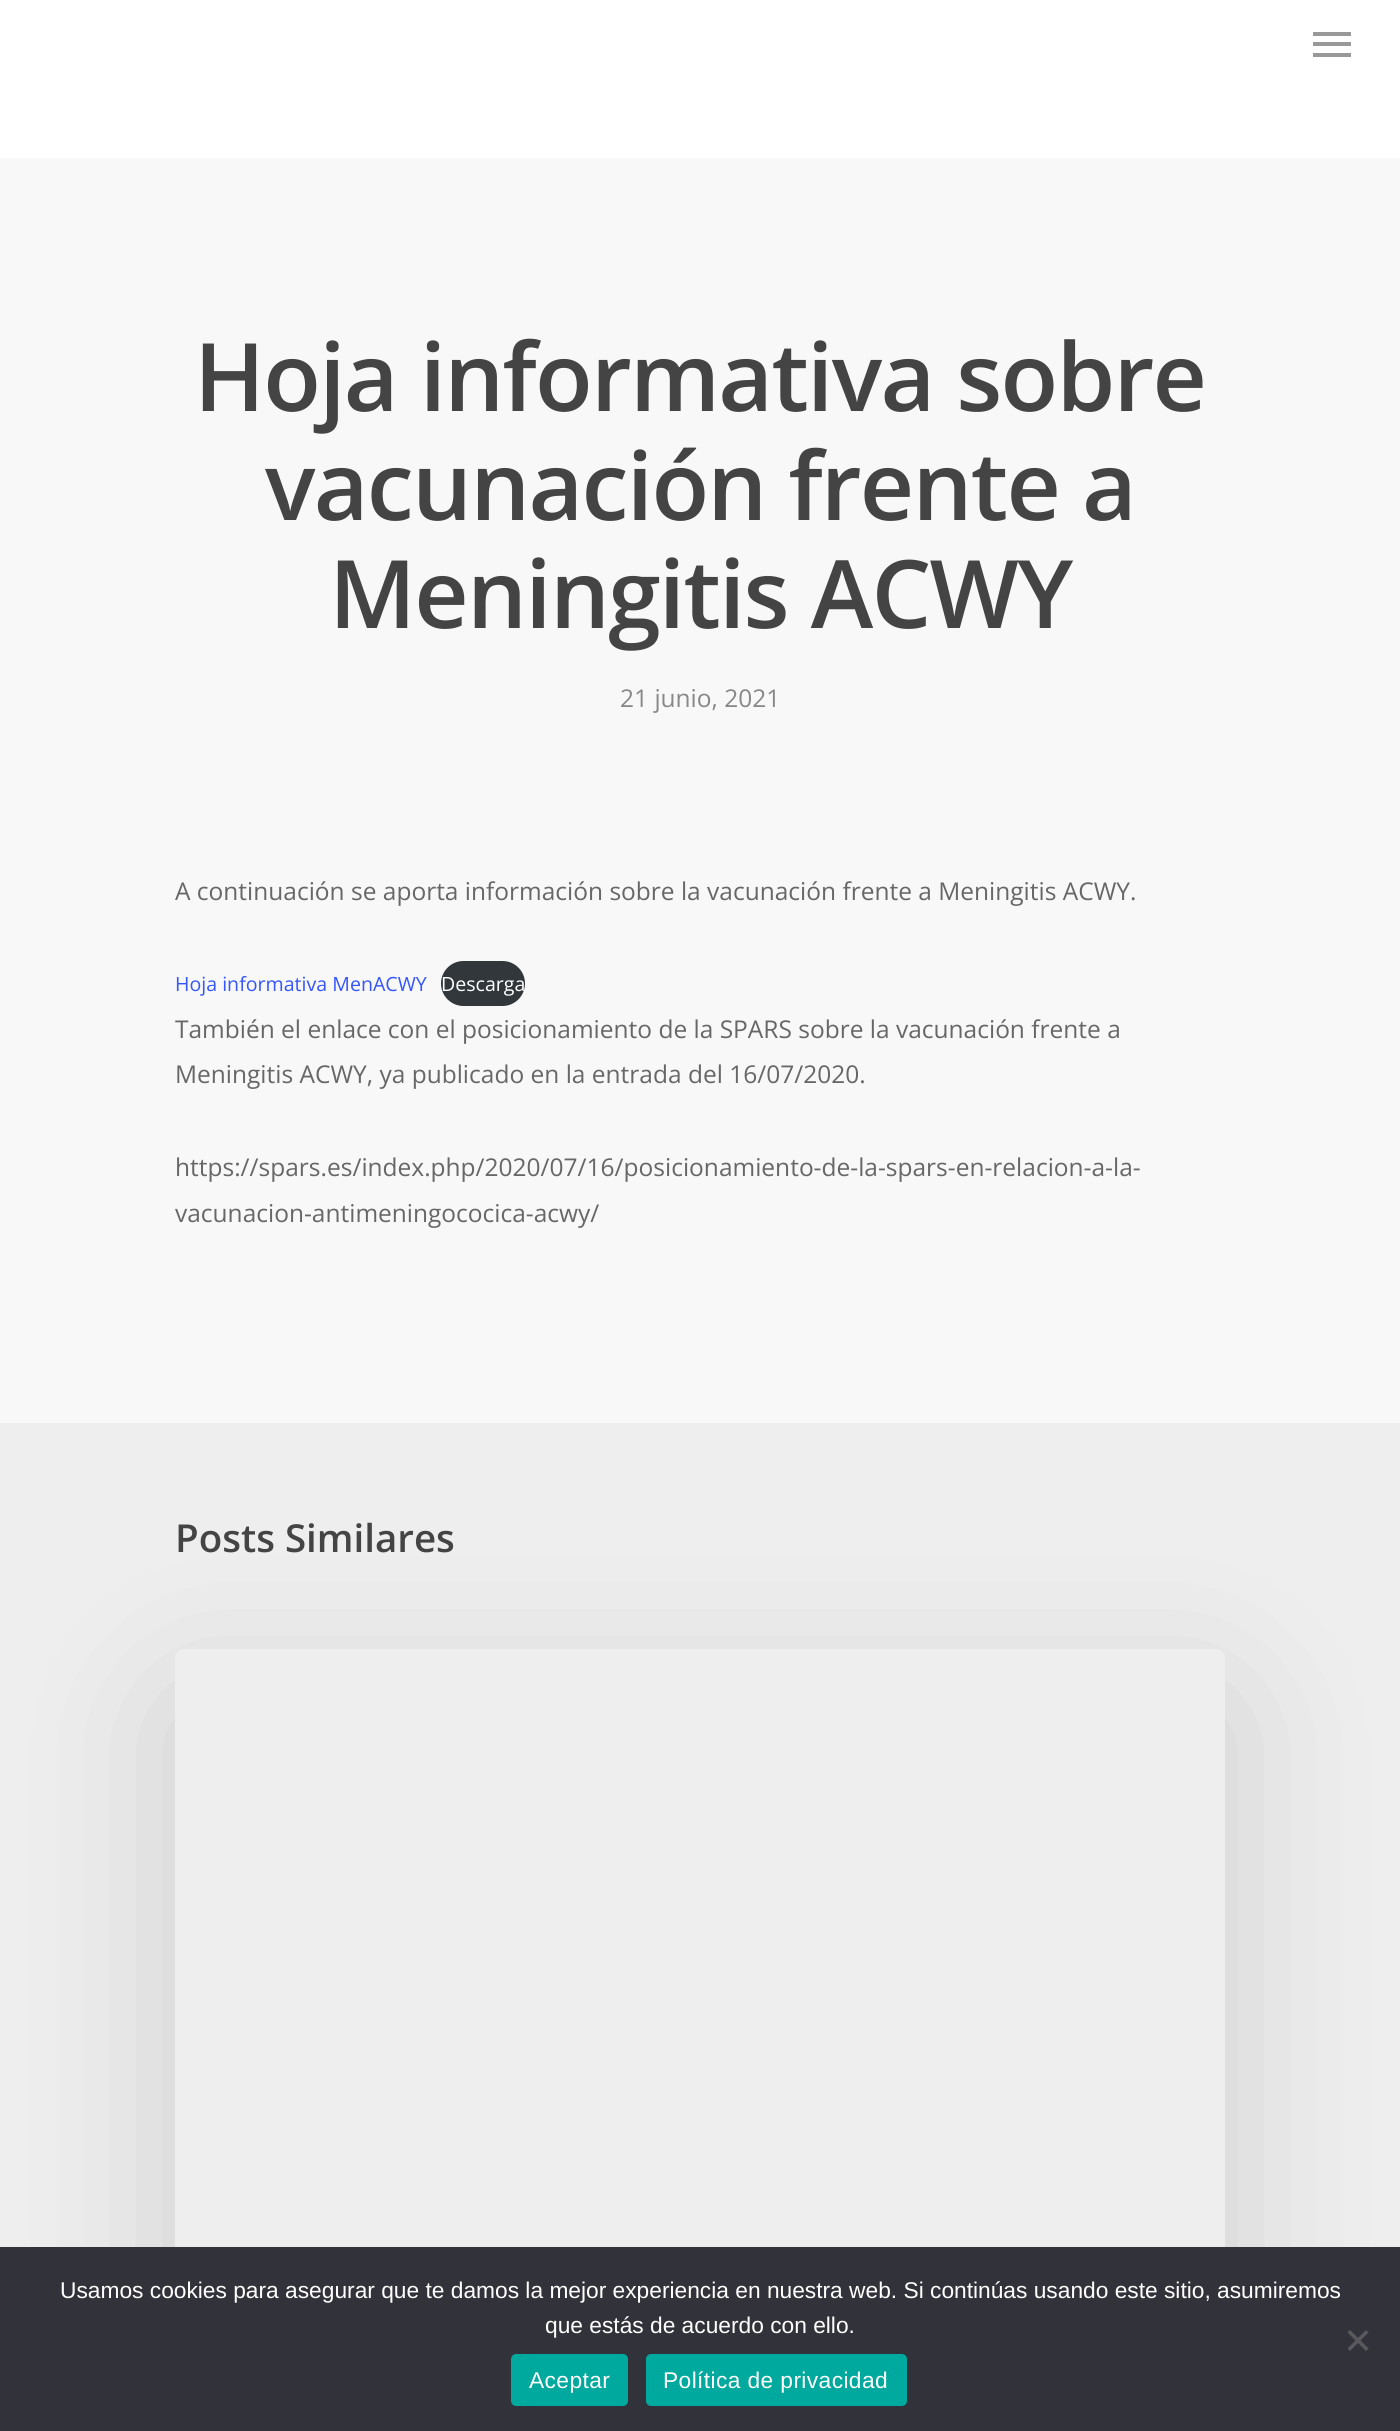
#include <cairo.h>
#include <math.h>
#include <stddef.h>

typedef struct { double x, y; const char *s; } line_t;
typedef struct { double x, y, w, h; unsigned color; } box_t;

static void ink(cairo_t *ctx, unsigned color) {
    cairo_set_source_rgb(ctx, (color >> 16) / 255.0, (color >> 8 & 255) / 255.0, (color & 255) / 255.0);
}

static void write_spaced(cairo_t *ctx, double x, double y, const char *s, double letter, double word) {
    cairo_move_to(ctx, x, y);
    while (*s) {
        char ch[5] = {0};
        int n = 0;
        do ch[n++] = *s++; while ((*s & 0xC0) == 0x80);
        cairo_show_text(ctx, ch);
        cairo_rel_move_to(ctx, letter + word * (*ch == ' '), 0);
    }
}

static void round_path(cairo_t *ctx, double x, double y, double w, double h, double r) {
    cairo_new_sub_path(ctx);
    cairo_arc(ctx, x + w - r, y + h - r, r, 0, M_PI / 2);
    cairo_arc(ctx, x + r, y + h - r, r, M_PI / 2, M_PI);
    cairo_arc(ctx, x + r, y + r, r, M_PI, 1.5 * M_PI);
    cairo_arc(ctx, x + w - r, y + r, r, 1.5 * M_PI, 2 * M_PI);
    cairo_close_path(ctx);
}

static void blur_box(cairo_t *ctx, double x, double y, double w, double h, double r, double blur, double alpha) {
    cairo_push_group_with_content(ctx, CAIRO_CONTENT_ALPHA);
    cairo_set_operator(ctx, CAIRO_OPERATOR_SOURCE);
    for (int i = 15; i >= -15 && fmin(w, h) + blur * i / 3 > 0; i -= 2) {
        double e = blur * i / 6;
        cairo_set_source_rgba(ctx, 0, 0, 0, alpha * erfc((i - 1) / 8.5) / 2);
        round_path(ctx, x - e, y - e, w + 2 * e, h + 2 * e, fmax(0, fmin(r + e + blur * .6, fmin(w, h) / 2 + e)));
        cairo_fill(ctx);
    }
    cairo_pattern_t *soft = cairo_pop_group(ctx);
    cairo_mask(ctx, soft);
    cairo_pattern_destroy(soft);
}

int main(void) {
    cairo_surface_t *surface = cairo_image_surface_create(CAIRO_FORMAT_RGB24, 1400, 2431);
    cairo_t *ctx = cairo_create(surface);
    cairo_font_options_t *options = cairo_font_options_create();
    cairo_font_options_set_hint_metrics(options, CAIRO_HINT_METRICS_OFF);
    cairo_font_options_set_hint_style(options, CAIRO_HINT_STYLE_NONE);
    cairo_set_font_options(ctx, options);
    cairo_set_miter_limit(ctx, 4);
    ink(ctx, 0xFFFFFF);
    cairo_paint(ctx);
    {
        static const box_t items[] = {
            {1313, 32, 38, 4, 0x999999},
            {1313, 53, 38, 4, 0x999999},
            {1313, 42, 38, 4, 0x999999},
            {0, 158, 1400, 1265, 0xF8F8F8},
            {0, 1423, 1400, 824, 0xEEEEEE},
        };
        for (size_t i = 0; i < sizeof items / sizeof *items; i++) {
            ink(ctx, items[i].color);
            cairo_rectangle(ctx, items[i].x, items[i].y, items[i].w, items[i].h);
            cairo_fill(ctx);
        }
    }
    cairo_select_font_face(ctx, "Open Sans SemiBold", CAIRO_FONT_SLANT_NORMAL, CAIRO_FONT_WEIGHT_NORMAL);
    cairo_set_font_size(ctx, 94.5);
    ink(ctx, 0x444444);
    {
        static const line_t items[] = {
            {194, 411, "Hoja informativa sobre"},
            {265, 520, "vacunación frente a"},
            {329, 628, "Meningitis ACWY"},
        };
        for (size_t i = 0; i < sizeof items / sizeof *items; i++) {
            write_spaced(ctx, items[i].x, items[i].y, items[i].s, -1.75, 0);
        }
    }
    cairo_select_font_face(ctx, "Open Sans", CAIRO_FONT_SLANT_NORMAL, CAIRO_FONT_WEIGHT_NORMAL);
    cairo_set_font_size(ctx, 24.5);
    ink(ctx, 0x888888);
    cairo_move_to(ctx, 620, 707);
    cairo_show_text(ctx, "21 junio, 2021");
    ink(ctx, 0x676767);
    cairo_move_to(ctx, 175, 900);
    cairo_show_text(ctx, "A continuación se aporta información sobre la vacunación frente a Meningitis ACWY.");
    cairo_set_font_size(ctx, 19.6);
    ink(ctx, 0x3555FF);
    cairo_move_to(ctx, 175, 991);
    cairo_show_text(ctx, "Hoja informativa MenACWY");
    ink(ctx, 0x32373C);
    round_path(ctx, 441, 961, 84, 45, 22.5);
    cairo_fill(ctx);
    ink(ctx, 0xFFFFFF);
    cairo_move_to(ctx, 441, 991);
    cairo_show_text(ctx, "Descarga");
    cairo_set_font_size(ctx, 24.5);
    ink(ctx, 0x676767);
    {
        static const line_t items[] = {
            {175, 1038, "También el enlace con el posicionamiento de la SPARS sobre la vacunación frente a"},
            {175, 1083, "Meningitis ACWY, ya publicado en la entrada del 16/07/2020."},
            {175, 1176, "https://spars.es/index.php/2020/07/16/posicionamiento-de-la-spars-en-relacion-a-la-"},
            {175, 1222, "vacunacion-antimeningococica-acwy/"},
        };
        for (size_t i = 0; i < sizeof items / sizeof *items; i++) {
            cairo_move_to(ctx, items[i].x, items[i].y);
            cairo_show_text(ctx, items[i].s);
        }
    }
    cairo_save(ctx);
    cairo_set_fill_rule(ctx, CAIRO_FILL_RULE_EVEN_ODD);
    cairo_new_path(ctx);
    cairo_move_to(ctx, 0, 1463);
    cairo_line_to(ctx, 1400, 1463);
    cairo_line_to(ctx, 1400, 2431);
    cairo_line_to(ctx, 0, 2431);
    cairo_close_path(ctx);
    cairo_move_to(ctx, 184, 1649);
    cairo_line_to(ctx, 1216, 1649);
    cairo_curve_to(ctx, 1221, 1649, 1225, 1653, 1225, 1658);
    cairo_line_to(ctx, 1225, 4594);
    cairo_curve_to(ctx, 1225, 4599, 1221, 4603, 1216, 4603);
    cairo_line_to(ctx, 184, 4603);
    cairo_curve_to(ctx, 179, 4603, 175, 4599, 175, 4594);
    cairo_line_to(ctx, 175, 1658);
    cairo_curve_to(ctx, 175, 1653, 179, 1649, 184, 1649);
    cairo_close_path(ctx);
    cairo_clip(ctx);
    ink(ctx, 0x000000);
    blur_box(ctx, 175, 1701, 1050, 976, 9, 79, 0.14);
    cairo_restore(ctx);
    cairo_select_font_face(ctx, "Open Sans SemiBold", CAIRO_FONT_SLANT_NORMAL, CAIRO_FONT_WEIGHT_NORMAL);
    cairo_set_font_size(ctx, 38.5);
    ink(ctx, 0x444444);
    cairo_move_to(ctx, 175, 1552);
    cairo_show_text(ctx, "Posts Similares");
    ink(ctx, 0x32323A);
    cairo_rectangle(ctx, 0, 2247, 1400, 184);
    cairo_fill(ctx);
    cairo_select_font_face(ctx, "Liberation Sans", CAIRO_FONT_SLANT_NORMAL, CAIRO_FONT_WEIGHT_NORMAL);
    cairo_set_font_size(ctx, 22.75);
    ink(ctx, 0xFFFFFF);
    cairo_move_to(ctx, 60, 2298);
    cairo_show_text(ctx, "Usamos cookies para asegurar que te damos la mejor experiencia en nuestra web. Si continúas usando este sitio, asumiremos");
    cairo_move_to(ctx, 545, 2333);
    cairo_show_text(ctx, "que estás de acuerdo con ello.");
    ink(ctx, 0x59595D);
    cairo_new_path(ctx);
    cairo_move_to(ctx, 1366, 2330);
    cairo_line_to(ctx, 1368.5, 2332.5);
    cairo_line_to(ctx, 1350, 2351);
    cairo_line_to(ctx, 1347.5, 2348.5);
    cairo_close_path(ctx);
    cairo_fill(ctx);
    cairo_new_path(ctx);
    cairo_move_to(ctx, 1347.5, 2332.5);
    cairo_line_to(ctx, 1350, 2330);
    cairo_line_to(ctx, 1368.5, 2348.5);
    cairo_line_to(ctx, 1366, 2351);
    cairo_close_path(ctx);
    cairo_fill(ctx);
    ink(ctx, 0x00A99D);
    round_path(ctx, 511, 2354, 117, 52, 5);
    cairo_fill(ctx);
    ink(ctx, 0xFFFFFF);
    write_spaced(ctx, 529, 2388, "Aceptar", 0.4, 0);
    ink(ctx, 0x00A99D);
    round_path(ctx, 646, 2354, 261, 52, 5);
    cairo_fill(ctx);
    ink(ctx, 0xFFFFFF);
    write_spaced(ctx, 663, 2388, "Política de privacidad", 0.4, 0);
    cairo_surface_write_to_png(surface, "image.png");
    cairo_font_options_destroy(options);
    cairo_destroy(ctx);
    cairo_surface_destroy(surface);
    return 0;
}
